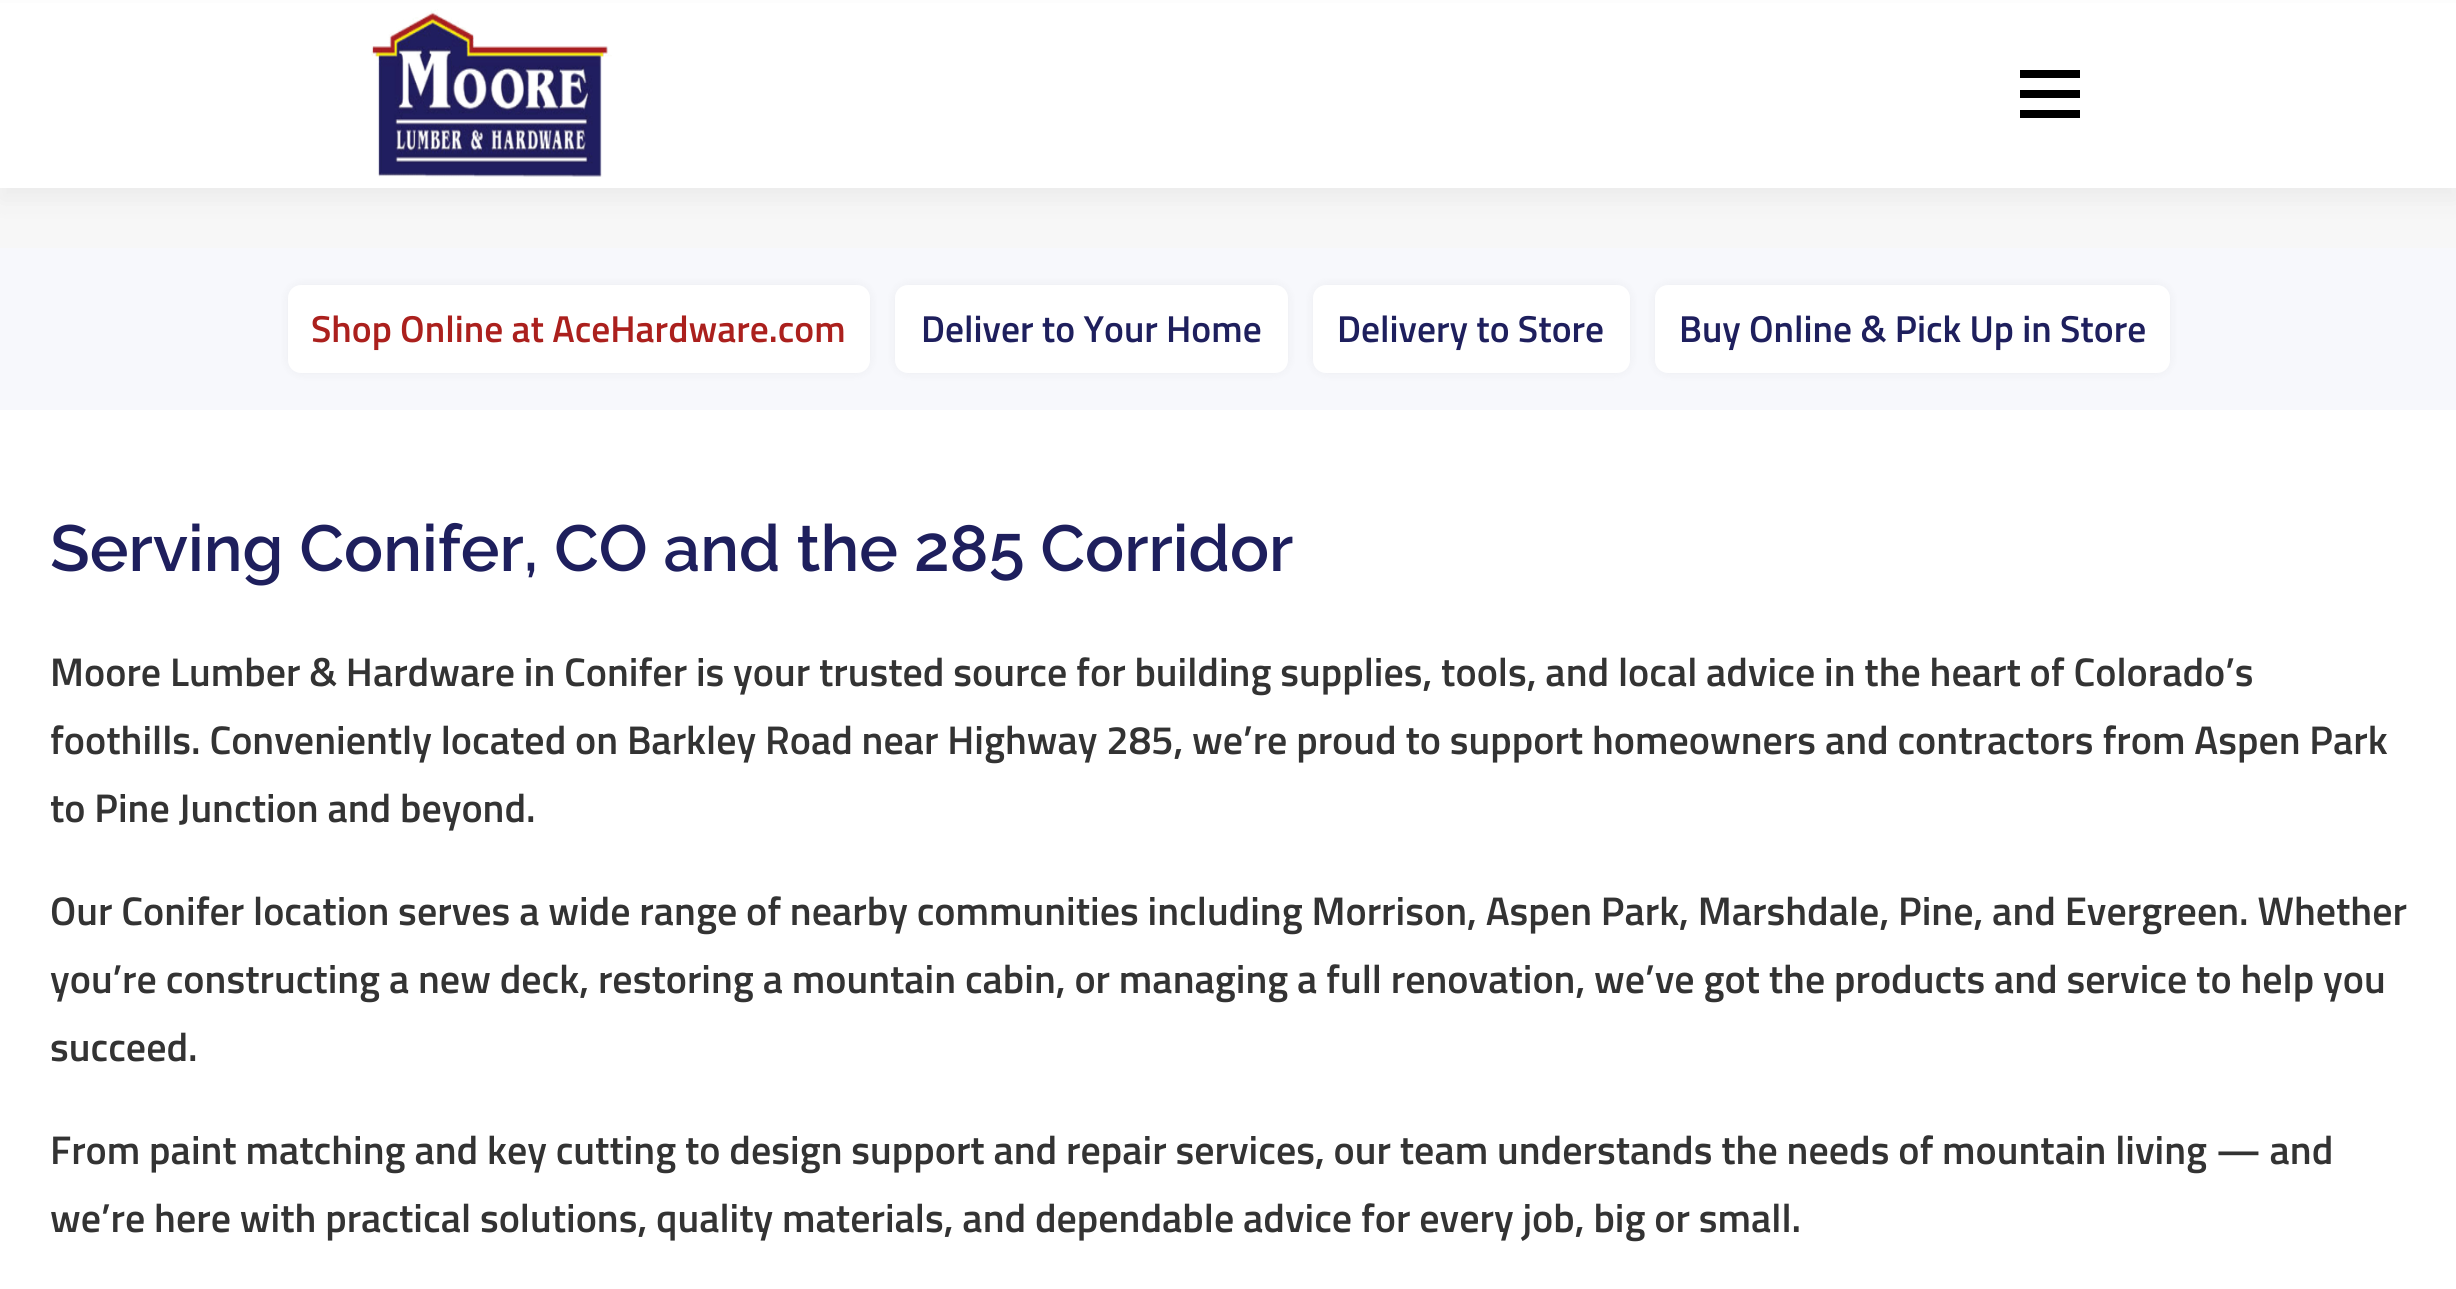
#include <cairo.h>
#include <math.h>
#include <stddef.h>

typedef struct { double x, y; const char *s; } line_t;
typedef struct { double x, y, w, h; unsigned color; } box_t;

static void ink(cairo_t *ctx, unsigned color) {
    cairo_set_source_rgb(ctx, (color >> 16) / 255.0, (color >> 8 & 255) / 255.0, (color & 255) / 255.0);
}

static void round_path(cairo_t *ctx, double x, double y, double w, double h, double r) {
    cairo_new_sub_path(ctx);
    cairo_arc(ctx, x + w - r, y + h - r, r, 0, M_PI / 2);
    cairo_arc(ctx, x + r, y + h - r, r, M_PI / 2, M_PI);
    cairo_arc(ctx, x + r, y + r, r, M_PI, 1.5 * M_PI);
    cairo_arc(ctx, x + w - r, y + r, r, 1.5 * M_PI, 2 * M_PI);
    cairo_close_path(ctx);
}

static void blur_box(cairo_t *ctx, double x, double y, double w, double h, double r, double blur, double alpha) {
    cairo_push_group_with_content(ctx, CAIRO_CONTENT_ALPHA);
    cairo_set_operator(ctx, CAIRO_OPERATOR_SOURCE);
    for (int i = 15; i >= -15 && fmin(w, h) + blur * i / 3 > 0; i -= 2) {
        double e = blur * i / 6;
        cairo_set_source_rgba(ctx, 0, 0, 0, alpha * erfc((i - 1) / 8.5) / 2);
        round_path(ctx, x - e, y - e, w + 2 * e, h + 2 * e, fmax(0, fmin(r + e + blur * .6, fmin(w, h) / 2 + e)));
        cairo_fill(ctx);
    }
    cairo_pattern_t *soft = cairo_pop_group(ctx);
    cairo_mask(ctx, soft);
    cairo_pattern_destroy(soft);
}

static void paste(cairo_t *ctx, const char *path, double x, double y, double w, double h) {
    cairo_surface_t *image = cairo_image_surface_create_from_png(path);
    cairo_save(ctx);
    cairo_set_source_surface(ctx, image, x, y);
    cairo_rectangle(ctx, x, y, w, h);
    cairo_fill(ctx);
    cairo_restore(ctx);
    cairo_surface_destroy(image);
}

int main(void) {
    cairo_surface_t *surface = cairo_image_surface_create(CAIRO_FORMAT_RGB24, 2456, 1289);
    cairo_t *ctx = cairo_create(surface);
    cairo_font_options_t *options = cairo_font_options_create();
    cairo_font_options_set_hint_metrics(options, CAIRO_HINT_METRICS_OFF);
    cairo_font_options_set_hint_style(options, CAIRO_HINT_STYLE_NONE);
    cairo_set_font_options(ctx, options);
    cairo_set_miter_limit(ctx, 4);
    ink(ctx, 0xFFFFFF);
    cairo_paint(ctx);
    ink(ctx, 0xF7F7F7);
    cairo_rectangle(ctx, 0, 188, 2456, 60);
    cairo_fill(ctx);
    ink(ctx, 0x323232);
    blur_box(ctx, 0, 13, 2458, 187, 0, 12.5, 0.06);
    ink(ctx, 0xFFFFFF);
    cairo_rectangle(ctx, 0, 3, 2456, 185);
    cairo_fill(ctx);
    paste(ctx, "media/1.png", 371, 9, 241, 168);
    {
        static const box_t items[] = {
            {2020, 90, 60, 8, 0x000000},
            {2020, 70, 60, 8, 0x000000},
            {2020, 110, 60, 8, 0x000000},
            {0, 248, 2456, 162, 0xF7F8FC},
        };
        for (size_t i = 0; i < sizeof items / sizeof *items; i++) {
            ink(ctx, items[i].color);
            cairo_rectangle(ctx, items[i].x, items[i].y, items[i].w, items[i].h);
            cairo_fill(ctx);
        }
    }
    ink(ctx, 0x000000);
    blur_box(ctx, 288, 285, 582, 88, 13, 5, 0.05);
    ink(ctx, 0xFFFFFF);
    round_path(ctx, 288, 285, 582, 88, 13);
    cairo_fill(ctx);
    cairo_select_font_face(ctx, "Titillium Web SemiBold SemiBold", CAIRO_FONT_SLANT_NORMAL, CAIRO_FONT_WEIGHT_NORMAL);
    cairo_set_font_size(ctx, 37.5);
    ink(ctx, 0xAB201D);
    cairo_move_to(ctx, 311, 342);
    cairo_show_text(ctx, "Shop Online at AceHardware.com");
    ink(ctx, 0x000000);
    blur_box(ctx, 895, 285, 393, 88, 13, 5, 0.05);
    ink(ctx, 0xFFFFFF);
    round_path(ctx, 895, 285, 393, 88, 13);
    cairo_fill(ctx);
    ink(ctx, 0x1E1F5D);
    cairo_move_to(ctx, 921, 342);
    cairo_show_text(ctx, "Deliver to Your Home");
    ink(ctx, 0x000000);
    blur_box(ctx, 1313, 285, 317, 88, 13, 5, 0.05);
    ink(ctx, 0xFFFFFF);
    round_path(ctx, 1313, 285, 317, 88, 13);
    cairo_fill(ctx);
    ink(ctx, 0x1E1F5D);
    cairo_move_to(ctx, 1337, 342);
    cairo_show_text(ctx, "Delivery to Store");
    ink(ctx, 0x000000);
    blur_box(ctx, 1655, 285, 515, 88, 13, 5, 0.05);
    ink(ctx, 0xFFFFFF);
    round_path(ctx, 1655, 285, 515, 88, 13);
    cairo_fill(ctx);
    ink(ctx, 0x1E1F5D);
    cairo_move_to(ctx, 1679, 342);
    cairo_show_text(ctx, "Buy Online & Pick Up in Store");
    cairo_select_font_face(ctx, "Raleway SemiBold", CAIRO_FONT_SLANT_NORMAL, CAIRO_FONT_WEIGHT_NORMAL);
    cairo_set_font_size(ctx, 65);
    cairo_move_to(ctx, 50, 571);
    cairo_show_text(ctx, "Serving Conifer, CO and the 285 Corridor");
    cairo_select_font_face(ctx, "Titillium Web SemiBold SemiBold", CAIRO_FONT_SLANT_NORMAL, CAIRO_FONT_WEIGHT_NORMAL);
    cairo_set_font_size(ctx, 40);
    ink(ctx, 0x333333);
    {
        static const line_t items[] = {
            {50, 686, "Moore Lumber & Hardware in Conifer is your trusted source for building supplies, tools, and local advice in the heart of Colorado’s"},
            {50, 754, "foothills. Conveniently located on Barkley Road near Highway 285, we’re proud to support homeowners and contractors from Aspen Park"},
            {50, 822, "to Pine Junction and beyond."},
            {50, 925, "Our Conifer location serves a wide range of nearby communities including Morrison, Aspen Park, Marshdale, Pine, and Evergreen. Whether"},
            {50, 993, "you’re constructing a new deck, restoring a mountain cabin, or managing a full renovation, we’ve got the products and service to help you"},
            {50, 1061, "succeed."},
            {50, 1164, "From paint matching and key cutting to design support and repair services, our team understands the needs of mountain living — and"},
            {50, 1232, "we’re here with practical solutions, quality materials, and dependable advice for every job, big or small."},
        };
        for (size_t i = 0; i < sizeof items / sizeof *items; i++) {
            cairo_move_to(ctx, items[i].x, items[i].y);
            cairo_show_text(ctx, items[i].s);
        }
    }
    cairo_surface_write_to_png(surface, "image.png");
    cairo_font_options_destroy(options);
    cairo_destroy(ctx);
    cairo_surface_destroy(surface);
    return 0;
}
